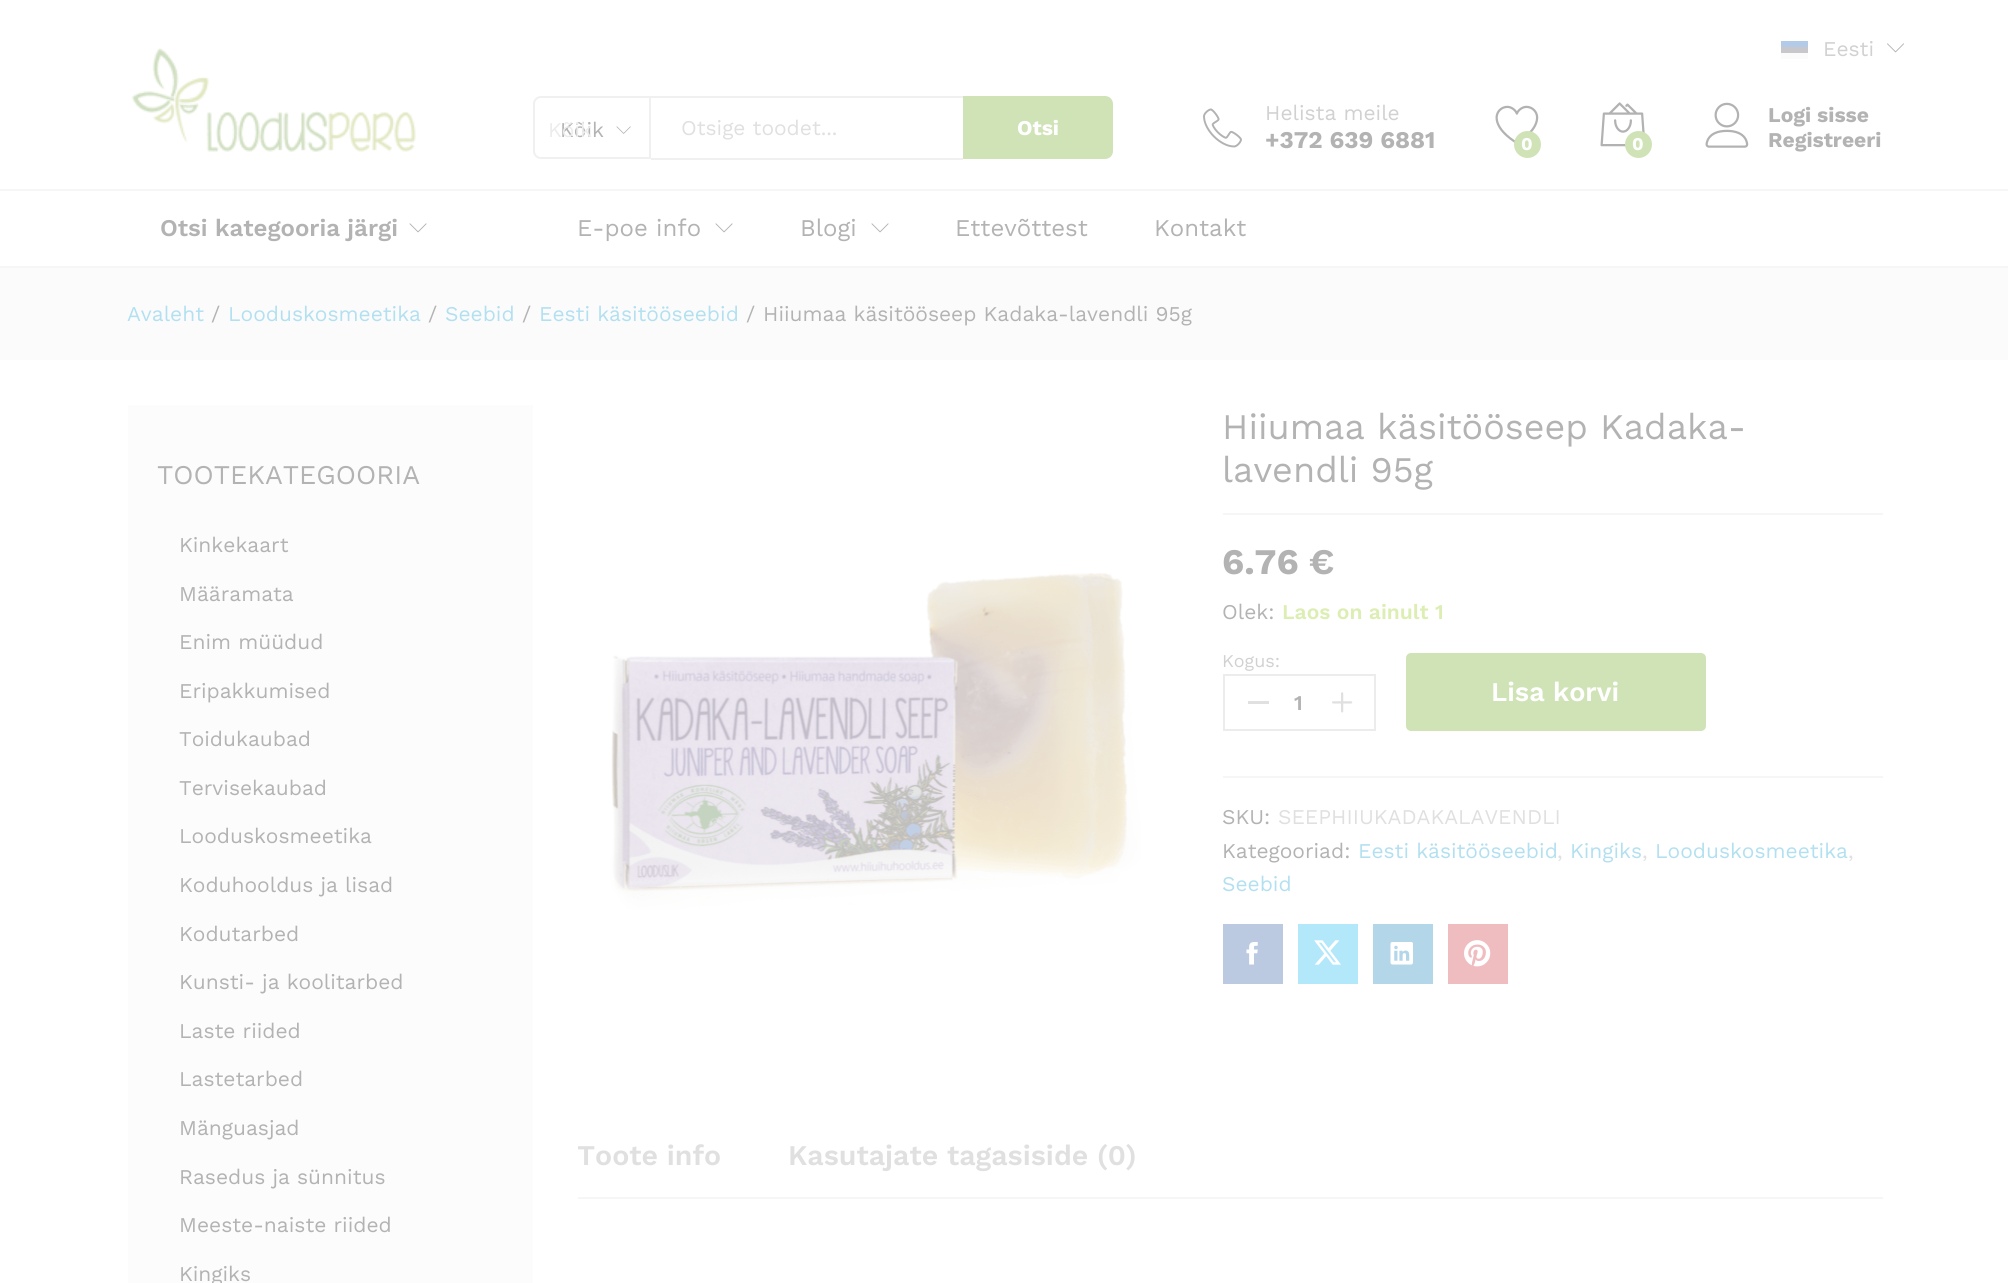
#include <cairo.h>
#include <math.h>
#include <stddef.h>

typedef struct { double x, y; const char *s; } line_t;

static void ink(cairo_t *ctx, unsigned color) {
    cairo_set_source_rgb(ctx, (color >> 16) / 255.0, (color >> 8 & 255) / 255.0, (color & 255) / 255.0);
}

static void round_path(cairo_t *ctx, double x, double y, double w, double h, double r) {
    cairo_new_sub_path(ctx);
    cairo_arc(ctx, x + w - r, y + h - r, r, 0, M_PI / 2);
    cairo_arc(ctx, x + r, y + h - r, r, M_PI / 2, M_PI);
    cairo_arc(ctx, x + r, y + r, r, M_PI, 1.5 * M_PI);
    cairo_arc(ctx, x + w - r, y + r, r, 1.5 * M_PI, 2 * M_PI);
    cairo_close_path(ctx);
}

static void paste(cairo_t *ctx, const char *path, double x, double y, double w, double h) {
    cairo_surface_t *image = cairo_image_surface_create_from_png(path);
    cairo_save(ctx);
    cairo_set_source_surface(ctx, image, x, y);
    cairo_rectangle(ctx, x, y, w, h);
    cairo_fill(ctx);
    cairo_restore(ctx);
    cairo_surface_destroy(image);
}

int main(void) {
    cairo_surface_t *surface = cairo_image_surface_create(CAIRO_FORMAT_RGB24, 2008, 1283);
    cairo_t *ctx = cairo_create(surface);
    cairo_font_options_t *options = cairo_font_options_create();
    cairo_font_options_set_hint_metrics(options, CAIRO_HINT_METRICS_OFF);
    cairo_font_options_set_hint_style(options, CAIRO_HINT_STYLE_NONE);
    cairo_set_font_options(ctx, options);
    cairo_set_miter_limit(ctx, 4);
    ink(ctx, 0xFFFFFF);
    cairo_paint(ctx);
    ink(ctx, 0xB3CBE9);
    cairo_rectangle(ctx, 1781, 41, 27, 6);
    cairo_fill(ctx);
    cairo_select_font_face(ctx, "Work Sans", CAIRO_FONT_SLANT_NORMAL, CAIRO_FONT_WEIGHT_NORMAL);
    cairo_set_font_size(ctx, 21);
    ink(ctx, 0xD1D1D1);
    cairo_move_to(ctx, 1823, 56);
    cairo_show_text(ctx, "Eesti");
    paste(ctx, "media/1.png", 1887, 43, 18, 10);
    ink(ctx, 0xC8C8CC);
    cairo_rectangle(ctx, 1781, 47, 27, 6);
    cairo_fill(ctx);
    ink(ctx, 0xFBFBFB);
    cairo_rectangle(ctx, 1781, 53, 27, 6);
    cairo_fill(ctx);
    paste(ctx, "media/2.png", 131, 47, 285, 106);
    cairo_new_path(ctx);
    cairo_move_to(ctx, 541, 97);
    cairo_line_to(ctx, 650, 97);
    cairo_line_to(ctx, 650, 158);
    cairo_line_to(ctx, 541, 158);
    cairo_curve_to(ctx, 537, 158, 534, 155, 534, 151);
    cairo_line_to(ctx, 534, 104);
    cairo_curve_to(ctx, 534, 100, 537, 97, 541, 97);
    cairo_close_path(ctx);
    ink(ctx, 0xF0F0F0);
    cairo_stroke(ctx);
    ink(ctx, 0xB3B3B3);
    cairo_move_to(ctx, 560, 137);
    cairo_show_text(ctx, "Kõik");
    ink(ctx, 0xECECEC);
    cairo_move_to(ctx, 548, 137);
    cairo_show_text(ctx, "Kõik");
    paste(ctx, "media/3.png", 616, 126, 15, 8);
    ink(ctx, 0xF0F0F0);
    cairo_rectangle(ctx, 651, 96, 312, 2);
    cairo_fill(ctx);
    cairo_rectangle(ctx, 651, 158, 312, 2);
    cairo_fill(ctx);
    ink(ctx, 0xE0E0E0);
    cairo_move_to(ctx, 681, 135);
    cairo_show_text(ctx, "Otsige toodet...");
    ink(ctx, 0xCFE3B7);
    cairo_new_path(ctx);
    cairo_move_to(ctx, 963, 96);
    cairo_line_to(ctx, 1105, 96);
    cairo_curve_to(ctx, 1109.5, 96, 1113, 99.5, 1113, 104);
    cairo_line_to(ctx, 1113, 151);
    cairo_curve_to(ctx, 1113, 155.5, 1109.5, 159, 1105, 159);
    cairo_line_to(ctx, 963, 159);
    cairo_close_path(ctx);
    cairo_fill(ctx);
    cairo_select_font_face(ctx, "Work Sans", CAIRO_FONT_SLANT_NORMAL, CAIRO_FONT_WEIGHT_BOLD);
    ink(ctx, 0xFFFFFF);
    cairo_move_to(ctx, 1017, 135);
    cairo_show_text(ctx, "Otsi");
    paste(ctx, "media/4.png", 1203, 108, 39, 40);
    cairo_select_font_face(ctx, "Work Sans", CAIRO_FONT_SLANT_NORMAL, CAIRO_FONT_WEIGHT_NORMAL);
    ink(ctx, 0xD1D1D1);
    cairo_move_to(ctx, 1265, 120);
    cairo_show_text(ctx, "Helista meile");
    cairo_select_font_face(ctx, "Work Sans", CAIRO_FONT_SLANT_NORMAL, CAIRO_FONT_WEIGHT_BOLD);
    cairo_set_font_size(ctx, 24);
    ink(ctx, 0xB3B3B3);
    cairo_move_to(ctx, 1265, 148);
    cairo_show_text(ctx, "+372 639 6881");
    paste(ctx, "media/5.png", 1495, 105, 44, 38);
    ink(ctx, 0xCFE3B7);
    cairo_arc(ctx, 1527.5, 144.5, 13.5, 0, 2 * M_PI);
    cairo_fill(ctx);
    cairo_set_font_size(ctx, 18);
    ink(ctx, 0xFFFFFF);
    cairo_move_to(ctx, 1521, 150);
    cairo_show_text(ctx, "0");
    paste(ctx, "media/6.png", 1600, 102, 45, 45);
    ink(ctx, 0xCFE3B7);
    cairo_arc(ctx, 1638.5, 144.5, 13.5, 0, 2 * M_PI);
    cairo_fill(ctx);
    ink(ctx, 0xFFFFFF);
    cairo_move_to(ctx, 1632, 150);
    cairo_show_text(ctx, "0");
    paste(ctx, "media/7.png", 1705, 102, 44, 46);
    cairo_set_font_size(ctx, 21);
    ink(ctx, 0xB3B3B3);
    cairo_move_to(ctx, 1768, 122);
    cairo_show_text(ctx, "Logi sisse");
    cairo_move_to(ctx, 1768, 147);
    cairo_show_text(ctx, "Registreeri");
    ink(ctx, 0xF6F6F6);
    cairo_rectangle(ctx, 0, 189, 2008, 2);
    cairo_fill(ctx);
    cairo_rectangle(ctx, 0, 266, 2008, 2);
    cairo_fill(ctx);
    cairo_select_font_face(ctx, "Work Sans SemiBold", CAIRO_FONT_SLANT_NORMAL, CAIRO_FONT_WEIGHT_NORMAL);
    cairo_set_font_size(ctx, 24);
    ink(ctx, 0xB3B3B3);
    cairo_move_to(ctx, 160, 236);
    cairo_show_text(ctx, "Otsi kategooria järgi");
    paste(ctx, "media/8.png", 409, 223, 18, 10);
    cairo_select_font_face(ctx, "Work Sans", CAIRO_FONT_SLANT_NORMAL, CAIRO_FONT_WEIGHT_NORMAL);
    cairo_move_to(ctx, 577, 236);
    cairo_show_text(ctx, "E-poe info");
    paste(ctx, "media/8.png", 715, 223, 18, 10);
    cairo_move_to(ctx, 800, 236);
    cairo_show_text(ctx, "Blogi");
    paste(ctx, "media/8.png", 871, 223, 18, 10);
    cairo_move_to(ctx, 955, 236);
    cairo_show_text(ctx, "Ettevõttest");
    cairo_move_to(ctx, 1154, 236);
    cairo_show_text(ctx, "Kontakt");
    ink(ctx, 0xFBFBFB);
    cairo_rectangle(ctx, 0, 268, 2008, 92);
    cairo_fill(ctx);
    cairo_set_font_size(ctx, 21);
    ink(ctx, 0xB3E0F0);
    cairo_move_to(ctx, 127, 321);
    cairo_show_text(ctx, "Avaleht");
    ink(ctx, 0xB3B3B3);
    cairo_move_to(ctx, 211, 321);
    cairo_show_text(ctx, "/");
    ink(ctx, 0xB3E0F0);
    cairo_move_to(ctx, 228, 321);
    cairo_show_text(ctx, "Looduskosmeetika");
    ink(ctx, 0xB3B3B3);
    cairo_move_to(ctx, 428, 321);
    cairo_show_text(ctx, "/");
    ink(ctx, 0xB3E0F0);
    cairo_move_to(ctx, 445, 321);
    cairo_show_text(ctx, "Seebid");
    ink(ctx, 0xB3B3B3);
    cairo_move_to(ctx, 522, 321);
    cairo_show_text(ctx, "/");
    ink(ctx, 0xB3E0F0);
    cairo_move_to(ctx, 539, 321);
    cairo_show_text(ctx, "Eesti käsitööseebid");
    ink(ctx, 0xB3B3B3);
    cairo_move_to(ctx, 746, 321);
    cairo_show_text(ctx, "/");
    cairo_move_to(ctx, 763, 321);
    cairo_show_text(ctx, "Hiiumaa käsitööseep Kadaka-lavendli 95g");
    ink(ctx, 0xFCFCFC);
    cairo_rectangle(ctx, 128, 405, 405, 878);
    cairo_fill(ctx);
    cairo_set_font_size(ctx, 27);
    ink(ctx, 0xB3B3B3);
    cairo_move_to(ctx, 157, 484);
    cairo_show_text(ctx, "TOOTEKATEGOORIA");
    cairo_set_font_size(ctx, 21);
    {
        static const line_t items[] = {
            {179, 552, "Kinkekaart"},
            {179, 601, "Määramata"},
            {179, 649, "Enim müüdud"},
            {179, 698, "Eripakkumised"},
            {179, 746, "Toidukaubad"},
            {179, 795, "Tervisekaubad"},
            {179, 843, "Looduskosmeetika"},
            {179, 892, "Koduhooldus ja lisad"},
            {179, 941, "Kodutarbed"},
            {179, 989, "Kunsti- ja koolitarbed"},
            {179, 1038, "Laste riided"},
            {179, 1086, "Lastetarbed"},
            {179, 1135, "Mänguasjad"},
            {179, 1184, "Rasedus ja sünnitus"},
            {179, 1232, "Meeste-naiste riided"},
            {179, 1281, "Kingiks"},
        };
        for (size_t i = 0; i < sizeof items / sizeof *items; i++) {
            cairo_move_to(ctx, items[i].x, items[i].y);
            cairo_show_text(ctx, items[i].s);
        }
    }
    paste(ctx, "media/9.png", 610, 572, 531, 338);
    ink(ctx, 0xF6F6F6);
    cairo_rectangle(ctx, 1223, 513, 660, 2);
    cairo_fill(ctx);
    cairo_set_font_size(ctx, 36);
    ink(ctx, 0xB3B3B3);
    cairo_move_to(ctx, 1222, 439);
    cairo_show_text(ctx, "Hiiumaa käsitööseep Kadaka-");
    cairo_move_to(ctx, 1222, 482);
    cairo_show_text(ctx, "lavendli 95g");
    cairo_select_font_face(ctx, "Work Sans", CAIRO_FONT_SLANT_NORMAL, CAIRO_FONT_WEIGHT_BOLD);
    cairo_move_to(ctx, 1222, 574);
    cairo_show_text(ctx, "6.76 €");
    cairo_select_font_face(ctx, "Work Sans", CAIRO_FONT_SLANT_NORMAL, CAIRO_FONT_WEIGHT_NORMAL);
    cairo_set_font_size(ctx, 21);
    cairo_move_to(ctx, 1222, 619);
    cairo_show_text(ctx, "Olek:");
    cairo_select_font_face(ctx, "Work Sans SemiBold", CAIRO_FONT_SLANT_NORMAL, CAIRO_FONT_WEIGHT_NORMAL);
    ink(ctx, 0xDCEEB3);
    cairo_move_to(ctx, 1282, 619);
    cairo_show_text(ctx, "Laos on ainult 1");
    cairo_select_font_face(ctx, "Work Sans", CAIRO_FONT_SLANT_NORMAL, CAIRO_FONT_WEIGHT_NORMAL);
    cairo_set_font_size(ctx, 18);
    ink(ctx, 0xD1D1D1);
    cairo_move_to(ctx, 1222, 667);
    cairo_show_text(ctx, "Kogus:");
    cairo_rectangle(ctx, 1224, 675, 151, 55);
    ink(ctx, 0xECECEC);
    cairo_stroke(ctx);
    ink(ctx, 0xE0E0E0);
    cairo_rectangle(ctx, 1248, 701, 21, 3);
    cairo_fill(ctx);
    cairo_select_font_face(ctx, "Work Sans SemiBold", CAIRO_FONT_SLANT_NORMAL, CAIRO_FONT_WEIGHT_NORMAL);
    cairo_set_font_size(ctx, 21);
    ink(ctx, 0xB3B3B3);
    cairo_move_to(ctx, 1294, 710);
    cairo_show_text(ctx, "1");
    paste(ctx, "media/10.png", 1332, 692, 21, 21);
    ink(ctx, 0xCFE3B7);
    round_path(ctx, 1406, 653, 300, 78, 5);
    cairo_fill(ctx);
    cairo_set_font_size(ctx, 27);
    ink(ctx, 0xFFFFFF);
    cairo_move_to(ctx, 1491, 701);
    cairo_show_text(ctx, "Lisa korvi");
    ink(ctx, 0xF6F6F6);
    cairo_rectangle(ctx, 1223, 776, 660, 2);
    cairo_fill(ctx);
    cairo_select_font_face(ctx, "Work Sans", CAIRO_FONT_SLANT_NORMAL, CAIRO_FONT_WEIGHT_NORMAL);
    cairo_set_font_size(ctx, 21);
    ink(ctx, 0xB3B3B3);
    cairo_move_to(ctx, 1222, 824);
    cairo_show_text(ctx, "SKU:");
    ink(ctx, 0xE0E0E0);
    cairo_move_to(ctx, 1278, 824);
    cairo_show_text(ctx, "SEEPHIIUKADAKALAVENDLI");
    ink(ctx, 0xB3B3B3);
    cairo_move_to(ctx, 1222, 858);
    cairo_show_text(ctx, "Kategooriad:");
    ink(ctx, 0xB3E0F0);
    cairo_move_to(ctx, 1358, 858);
    cairo_show_text(ctx, "Eesti käsitööseebid");
    ink(ctx, 0xE0E0E0);
    cairo_move_to(ctx, 1557, 858);
    cairo_show_text(ctx, ",");
    ink(ctx, 0xB3E0F0);
    cairo_move_to(ctx, 1570, 858);
    cairo_show_text(ctx, "Kingiks");
    ink(ctx, 0xE0E0E0);
    cairo_move_to(ctx, 1642, 858);
    cairo_show_text(ctx, ",");
    ink(ctx, 0xB3E0F0);
    cairo_move_to(ctx, 1655, 858);
    cairo_show_text(ctx, "Looduskosmeetika");
    ink(ctx, 0xE0E0E0);
    cairo_move_to(ctx, 1848, 858);
    cairo_show_text(ctx, ",");
    ink(ctx, 0xB3E0F0);
    cairo_move_to(ctx, 1222, 891);
    cairo_show_text(ctx, "Seebid");
    ink(ctx, 0xBBCAE1);
    cairo_rectangle(ctx, 1223, 924, 60, 60);
    cairo_fill(ctx);
    paste(ctx, "media/11.png", 1246, 942, 12, 23);
    ink(ctx, 0xB3E7FA);
    cairo_rectangle(ctx, 1298, 924, 60, 60);
    cairo_fill(ctx);
    paste(ctx, "media/12.png", 1314, 940, 27, 25);
    ink(ctx, 0xB3D6E9);
    cairo_rectangle(ctx, 1373, 924, 60, 60);
    cairo_fill(ctx);
    paste(ctx, "media/13.png", 1390, 942, 23, 23);
    ink(ctx, 0xEFBDC0);
    cairo_rectangle(ctx, 1448, 924, 60, 60);
    cairo_fill(ctx);
    paste(ctx, "media/14.png", 1464, 940, 27, 27);
    ink(ctx, 0xF6F6F6);
    cairo_rectangle(ctx, 578, 1197, 1305, 2);
    cairo_fill(ctx);
    cairo_save(ctx);
    cairo_rectangle(ctx, 578, 1142, 1305, 55);
    cairo_clip(ctx);
    cairo_select_font_face(ctx, "Work Sans SemiBold", CAIRO_FONT_SLANT_NORMAL, CAIRO_FONT_WEIGHT_NORMAL);
    cairo_set_font_size(ctx, 28.5);
    ink(ctx, 0xE0E0E0);
    cairo_move_to(ctx, 577, 1165);
    cairo_show_text(ctx, "Toote info");
    cairo_restore(ctx);
    cairo_select_font_face(ctx, "Work Sans SemiBold", CAIRO_FONT_SLANT_NORMAL, CAIRO_FONT_WEIGHT_NORMAL);
    cairo_set_font_size(ctx, 28.5);
    ink(ctx, 0xE0E0E0);
    cairo_move_to(ctx, 788, 1165);
    cairo_show_text(ctx, "Kasutajate tagasiside (0)");
    cairo_surface_write_to_png(surface, "image.png");
    cairo_font_options_destroy(options);
    cairo_destroy(ctx);
    cairo_surface_destroy(surface);
    return 0;
}
